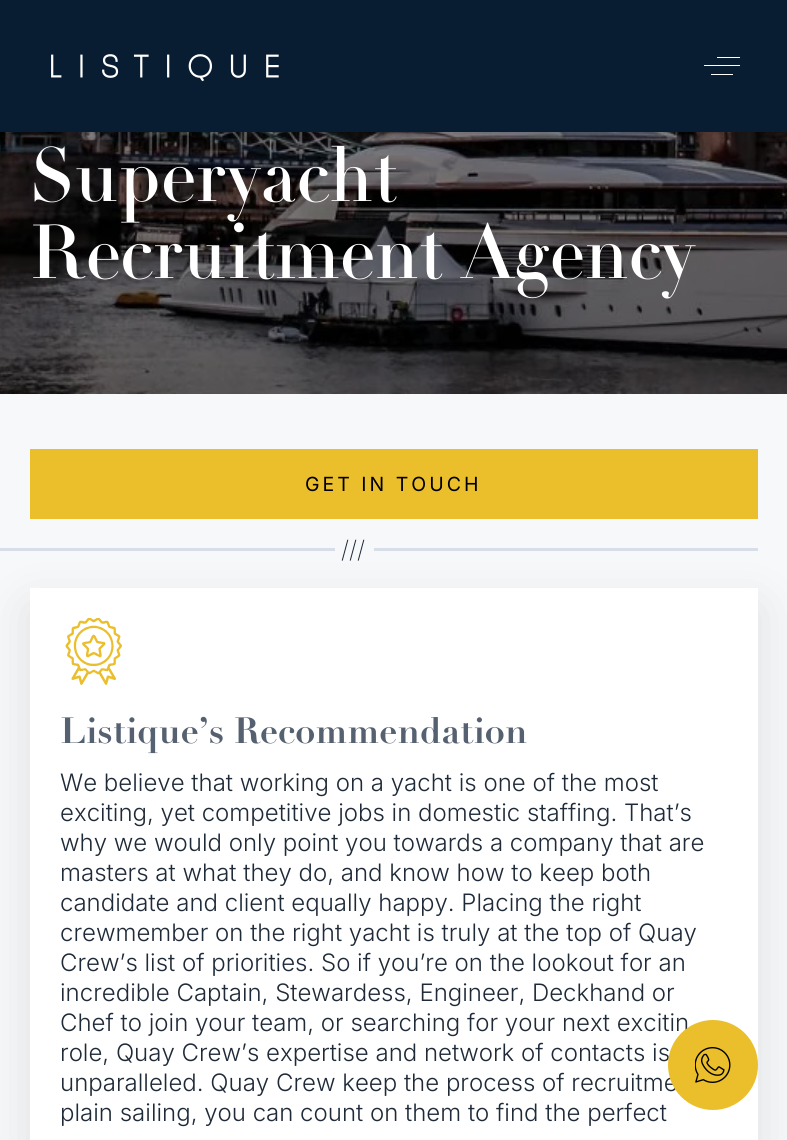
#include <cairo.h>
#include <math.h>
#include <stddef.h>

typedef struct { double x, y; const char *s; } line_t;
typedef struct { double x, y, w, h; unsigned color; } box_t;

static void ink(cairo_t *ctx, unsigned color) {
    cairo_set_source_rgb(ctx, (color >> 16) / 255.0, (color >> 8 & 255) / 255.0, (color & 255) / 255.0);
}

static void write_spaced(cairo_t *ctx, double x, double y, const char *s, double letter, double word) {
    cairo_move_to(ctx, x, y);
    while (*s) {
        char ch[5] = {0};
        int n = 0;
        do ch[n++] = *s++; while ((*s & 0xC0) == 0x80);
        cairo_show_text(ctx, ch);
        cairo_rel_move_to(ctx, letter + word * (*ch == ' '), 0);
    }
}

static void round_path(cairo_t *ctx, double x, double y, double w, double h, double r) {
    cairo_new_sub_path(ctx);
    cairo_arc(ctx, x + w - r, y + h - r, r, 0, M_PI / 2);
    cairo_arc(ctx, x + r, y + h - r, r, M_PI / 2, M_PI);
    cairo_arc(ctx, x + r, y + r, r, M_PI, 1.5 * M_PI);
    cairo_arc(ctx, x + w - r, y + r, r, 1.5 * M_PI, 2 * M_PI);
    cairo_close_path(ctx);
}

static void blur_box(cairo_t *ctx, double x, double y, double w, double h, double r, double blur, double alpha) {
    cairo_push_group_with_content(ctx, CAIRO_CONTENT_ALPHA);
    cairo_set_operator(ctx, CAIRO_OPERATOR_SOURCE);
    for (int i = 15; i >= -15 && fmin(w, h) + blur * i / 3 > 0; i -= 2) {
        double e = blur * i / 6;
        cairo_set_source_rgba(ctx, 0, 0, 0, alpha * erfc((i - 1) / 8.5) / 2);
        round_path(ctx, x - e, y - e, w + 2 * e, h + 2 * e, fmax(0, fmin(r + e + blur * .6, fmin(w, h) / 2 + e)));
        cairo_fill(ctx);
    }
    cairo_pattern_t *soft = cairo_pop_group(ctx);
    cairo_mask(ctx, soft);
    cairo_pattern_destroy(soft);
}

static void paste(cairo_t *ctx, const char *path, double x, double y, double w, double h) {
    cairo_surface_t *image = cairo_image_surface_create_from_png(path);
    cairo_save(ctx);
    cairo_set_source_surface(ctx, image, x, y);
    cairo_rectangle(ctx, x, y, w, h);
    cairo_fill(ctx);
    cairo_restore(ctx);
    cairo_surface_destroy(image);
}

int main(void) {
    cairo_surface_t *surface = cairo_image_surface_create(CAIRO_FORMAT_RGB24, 787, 1140);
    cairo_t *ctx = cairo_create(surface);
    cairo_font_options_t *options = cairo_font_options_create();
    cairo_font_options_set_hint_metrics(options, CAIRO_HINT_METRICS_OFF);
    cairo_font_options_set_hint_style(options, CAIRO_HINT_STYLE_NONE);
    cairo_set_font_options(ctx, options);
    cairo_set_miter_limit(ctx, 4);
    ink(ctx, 0xF7F8FA);
    cairo_paint(ctx);
    ink(ctx, 0x081D31);
    cairo_rectangle(ctx, 0, 0, 787, 132);
    cairo_fill(ctx);
    paste(ctx, "media/1.png", 51, 54, 228, 28);
    {
        static const box_t items[] = {
            {717, 57, 23, 1, 0xFFFFFF},
            {704, 65, 36, 1, 0xFFFFFF},
            {711, 74, 22, 1, 0xFFFFFF},
        };
        for (size_t i = 0; i < sizeof items / sizeof *items; i++) {
            ink(ctx, items[i].color);
            cairo_rectangle(ctx, items[i].x, items[i].y, items[i].w, items[i].h);
            cairo_fill(ctx);
        }
    }
    paste(ctx, "media/2.png", 0, 132, 787, 262);
    cairo_select_font_face(ctx, "Didot", CAIRO_FONT_SLANT_NORMAL, CAIRO_FONT_WEIGHT_NORMAL);
    cairo_set_font_size(ctx, 75);
    cairo_move_to(ctx, 30, 201);
    cairo_show_text(ctx, "Superyacht");
    cairo_move_to(ctx, 30, 278);
    cairo_show_text(ctx, "Recruitment Agency");
    ink(ctx, 0xEBBE2C);
    cairo_rectangle(ctx, 30, 449, 728, 70);
    cairo_fill(ctx);
    cairo_select_font_face(ctx, "Inter", CAIRO_FONT_SLANT_NORMAL, CAIRO_FONT_WEIGHT_NORMAL);
    cairo_set_font_size(ctx, 19.5);
    ink(ctx, 0x000000);
    write_spaced(ctx, 305, 491, "GET IN TOUCH", 3, 0);
    ink(ctx, 0x000000);
    blur_box(ctx, 30, 608, 728, 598, 0, 25, 0.1);
    ink(ctx, 0xD7DEE7);
    cairo_rectangle(ctx, 0, 548, 335, 3);
    cairo_fill(ctx);
    cairo_select_font_face(ctx, "Inter ExtraLight", CAIRO_FONT_SLANT_NORMAL, CAIRO_FONT_WEIGHT_NORMAL);
    cairo_set_font_size(ctx, 24);
    ink(ctx, 0x1F2A38);
    cairo_move_to(ctx, 341, 558);
    cairo_show_text(ctx, "///");
    ink(ctx, 0xD7DEE7);
    cairo_rectangle(ctx, 374, 548, 384, 3);
    cairo_fill(ctx);
    ink(ctx, 0xFFFFFF);
    cairo_rectangle(ctx, 30, 588, 728, 552);
    cairo_fill(ctx);
    paste(ctx, "media/3.png", 65, 618, 57, 67);
    cairo_select_font_face(ctx, "Didot", CAIRO_FONT_SLANT_NORMAL, CAIRO_FONT_WEIGHT_BOLD);
    cairo_set_font_size(ctx, 36);
    ink(ctx, 0x556171);
    cairo_move_to(ctx, 60, 743);
    cairo_show_text(ctx, "Listique’s Recommendation");
    cairo_select_font_face(ctx, "Inter Light", CAIRO_FONT_SLANT_NORMAL, CAIRO_FONT_WEIGHT_NORMAL);
    cairo_set_font_size(ctx, 24);
    ink(ctx, 0x1F2A38);
    {
        static const line_t items[] = {
            {60, 791, "We believe that working on a yacht is one of the most"},
            {60, 821, "exciting, yet competitive jobs in domestic staffing. That’s"},
            {60, 851, "why we would only point you towards a company that are"},
            {60, 881, "masters at what they do, and know how to keep both"},
            {60, 911, "candidate and client equally happy. Placing the right"},
            {60, 941, "crewmember on the right yacht is truly at the top of Quay"},
            {60, 971, "Crew’s list of priorities. So if you’re on the lookout for an"},
            {60, 1001, "incredible Captain, Stewardess, Engineer, Deckhand or"},
            {60, 1031, "Chef to join your team, or searching for your next excitin"},
            {60, 1061, "role, Quay Crew’s expertise and network of contacts is"},
            {60, 1091, "unparalleled. Quay Crew keep the process of recruitme"},
            {60, 1121, "plain sailing, you can count on them to find the perfect"},
        };
        for (size_t i = 0; i < sizeof items / sizeof *items; i++) {
            cairo_move_to(ctx, items[i].x, items[i].y);
            cairo_show_text(ctx, items[i].s);
        }
    }
    ink(ctx, 0xEBBE2C);
    cairo_new_path(ctx);
    cairo_arc(ctx, 713, 1065, 43.5, 0, 2 * M_PI);
    cairo_fill_preserve(ctx);
    cairo_set_line_width(ctx, 3);
    cairo_stroke(ctx);
    paste(ctx, "media/4.png", 695, 1047, 36, 36);
    cairo_surface_write_to_png(surface, "image.png");
    cairo_font_options_destroy(options);
    cairo_destroy(ctx);
    cairo_surface_destroy(surface);
    return 0;
}
